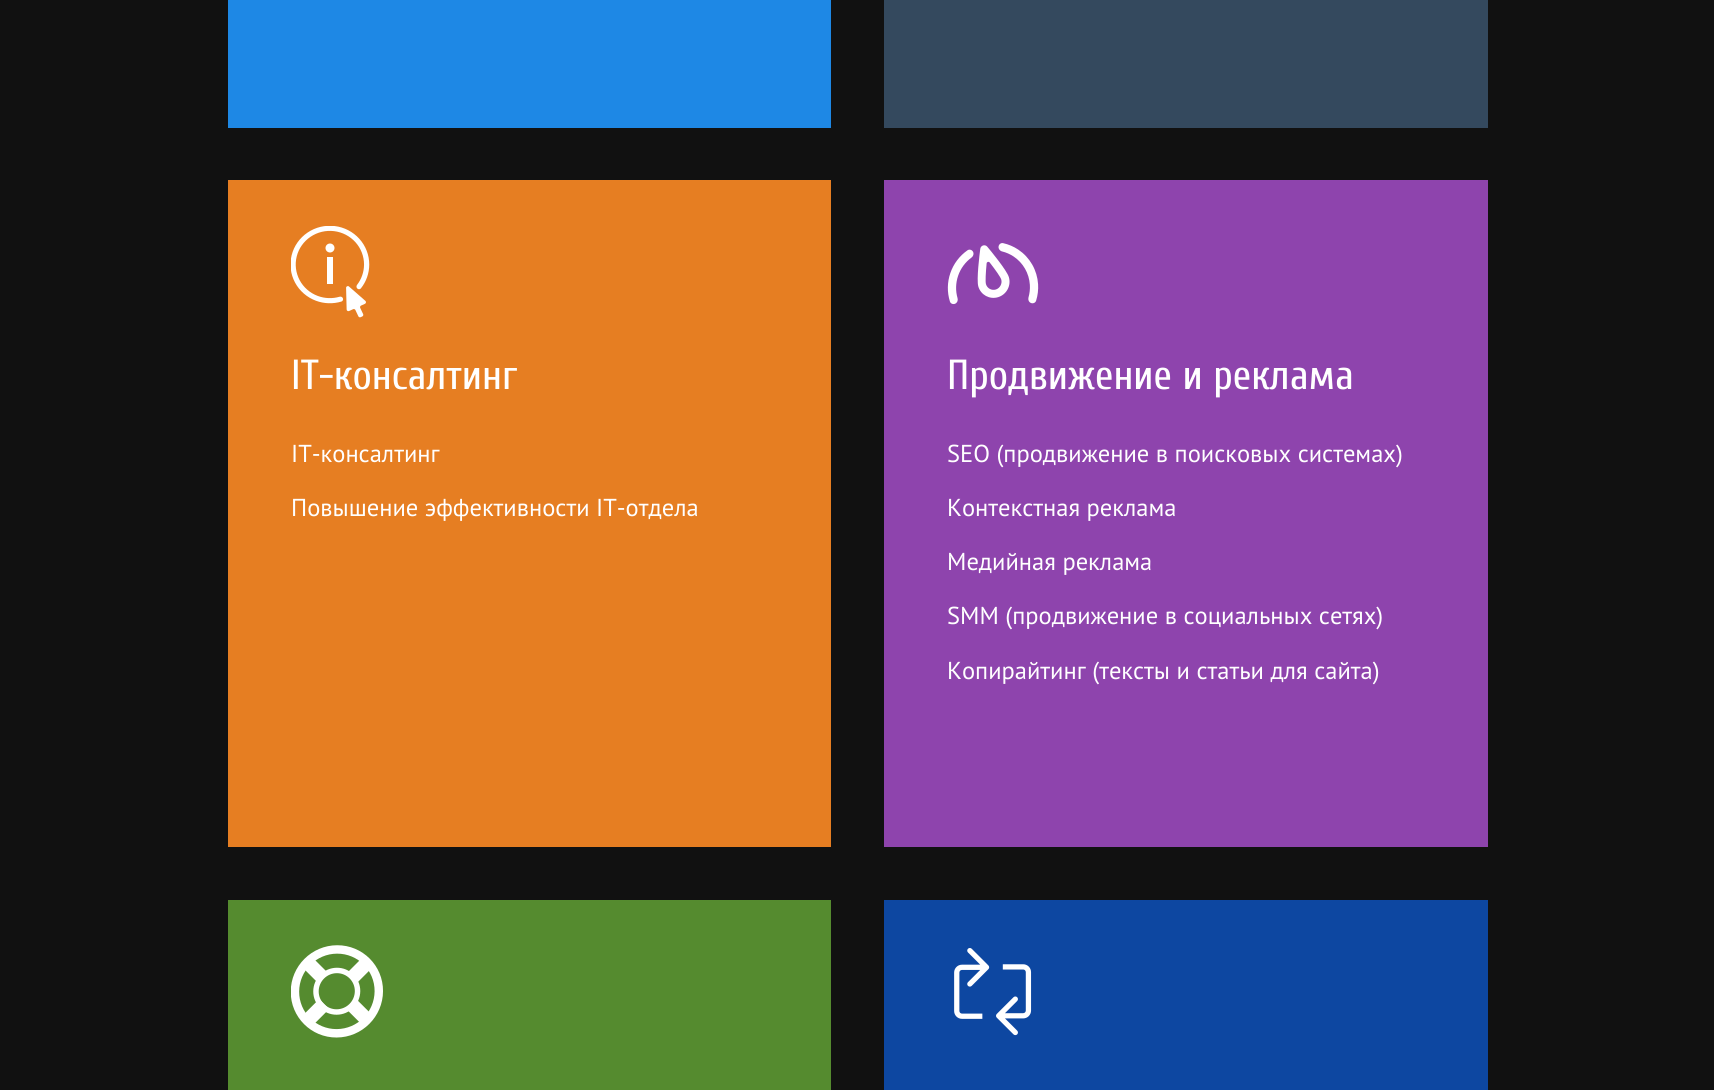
#include <cairo.h>
#include <math.h>
#include <stddef.h>

typedef struct { double x, y; const char *s; } line_t;
typedef struct { double x, y, w, h; unsigned color; } box_t;

static void ink(cairo_t *ctx, unsigned color) {
    cairo_set_source_rgb(ctx, (color >> 16) / 255.0, (color >> 8 & 255) / 255.0, (color & 255) / 255.0);
}

static void paste(cairo_t *ctx, const char *path, double x, double y, double w, double h) {
    cairo_surface_t *image = cairo_image_surface_create_from_png(path);
    cairo_save(ctx);
    cairo_set_source_surface(ctx, image, x, y);
    cairo_rectangle(ctx, x, y, w, h);
    cairo_fill(ctx);
    cairo_restore(ctx);
    cairo_surface_destroy(image);
}

int main(void) {
    cairo_surface_t *surface = cairo_image_surface_create(CAIRO_FORMAT_RGB24, 1714, 1090);
    cairo_t *ctx = cairo_create(surface);
    cairo_font_options_t *options = cairo_font_options_create();
    cairo_font_options_set_hint_metrics(options, CAIRO_HINT_METRICS_OFF);
    cairo_font_options_set_hint_style(options, CAIRO_HINT_STYLE_NONE);
    cairo_set_font_options(ctx, options);
    cairo_set_miter_limit(ctx, 4);
    ink(ctx, 0x111111);
    cairo_paint(ctx);
    {
        static const box_t items[] = {
            {228, 0, 603, 128, 0x1E88E5},
            {884, 0, 604, 128, 0x34495E},
            {228, 180, 603, 667, 0xE67E22},
        };
        for (size_t i = 0; i < sizeof items / sizeof *items; i++) {
            ink(ctx, items[i].color);
            cairo_rectangle(ctx, items[i].x, items[i].y, items[i].w, items[i].h);
            cairo_fill(ctx);
        }
    }
    paste(ctx, "media/1.png", 291, 226, 79, 92);
    cairo_select_font_face(ctx, "Cuprum", CAIRO_FONT_SLANT_NORMAL, CAIRO_FONT_WEIGHT_NORMAL);
    cairo_set_font_size(ctx, 42);
    ink(ctx, 0xFFFFFF);
    cairo_move_to(ctx, 291, 389);
    cairo_show_text(ctx, "IT-консалтинг");
    cairo_select_font_face(ctx, "PT Sans", CAIRO_FONT_SLANT_NORMAL, CAIRO_FONT_WEIGHT_NORMAL);
    cairo_set_font_size(ctx, 24.5);
    cairo_move_to(ctx, 291, 462);
    cairo_show_text(ctx, "IT-консалтинг");
    cairo_move_to(ctx, 291, 516);
    cairo_show_text(ctx, "Повышение эффективности IT-отдела");
    ink(ctx, 0x8E44AD);
    cairo_rectangle(ctx, 884, 180, 604, 667);
    cairo_fill(ctx);
    paste(ctx, "media/2.png", 947, 243, 92, 62);
    cairo_select_font_face(ctx, "Cuprum", CAIRO_FONT_SLANT_NORMAL, CAIRO_FONT_WEIGHT_NORMAL);
    cairo_set_font_size(ctx, 42);
    ink(ctx, 0xFFFFFF);
    cairo_move_to(ctx, 947, 389);
    cairo_show_text(ctx, "Продвижение и реклама");
    cairo_select_font_face(ctx, "PT Sans", CAIRO_FONT_SLANT_NORMAL, CAIRO_FONT_WEIGHT_NORMAL);
    cairo_set_font_size(ctx, 24.5);
    {
        static const line_t items[] = {
            {947, 462, "SEO (продвижение в поисковых системах)"},
            {947, 516, "Контекстная реклама"},
            {947, 570, "Медийная реклама"},
            {947, 624, "SMM (продвижение в социальных сетях)"},
            {947, 679, "Копирайтинг (тексты и статьи для сайта)"},
        };
        for (size_t i = 0; i < sizeof items / sizeof *items; i++) {
            cairo_move_to(ctx, items[i].x, items[i].y);
            cairo_show_text(ctx, items[i].s);
        }
    }
    ink(ctx, 0x558B2F);
    cairo_rectangle(ctx, 228, 900, 603, 190);
    cairo_fill(ctx);
    paste(ctx, "media/3.png", 291, 945, 92, 93);
    ink(ctx, 0x0D47A1);
    cairo_rectangle(ctx, 884, 900, 604, 190);
    cairo_fill(ctx);
    paste(ctx, "media/4.png", 954, 948, 78, 88);
    cairo_surface_write_to_png(surface, "image.png");
    cairo_font_options_destroy(options);
    cairo_destroy(ctx);
    cairo_surface_destroy(surface);
    return 0;
}
